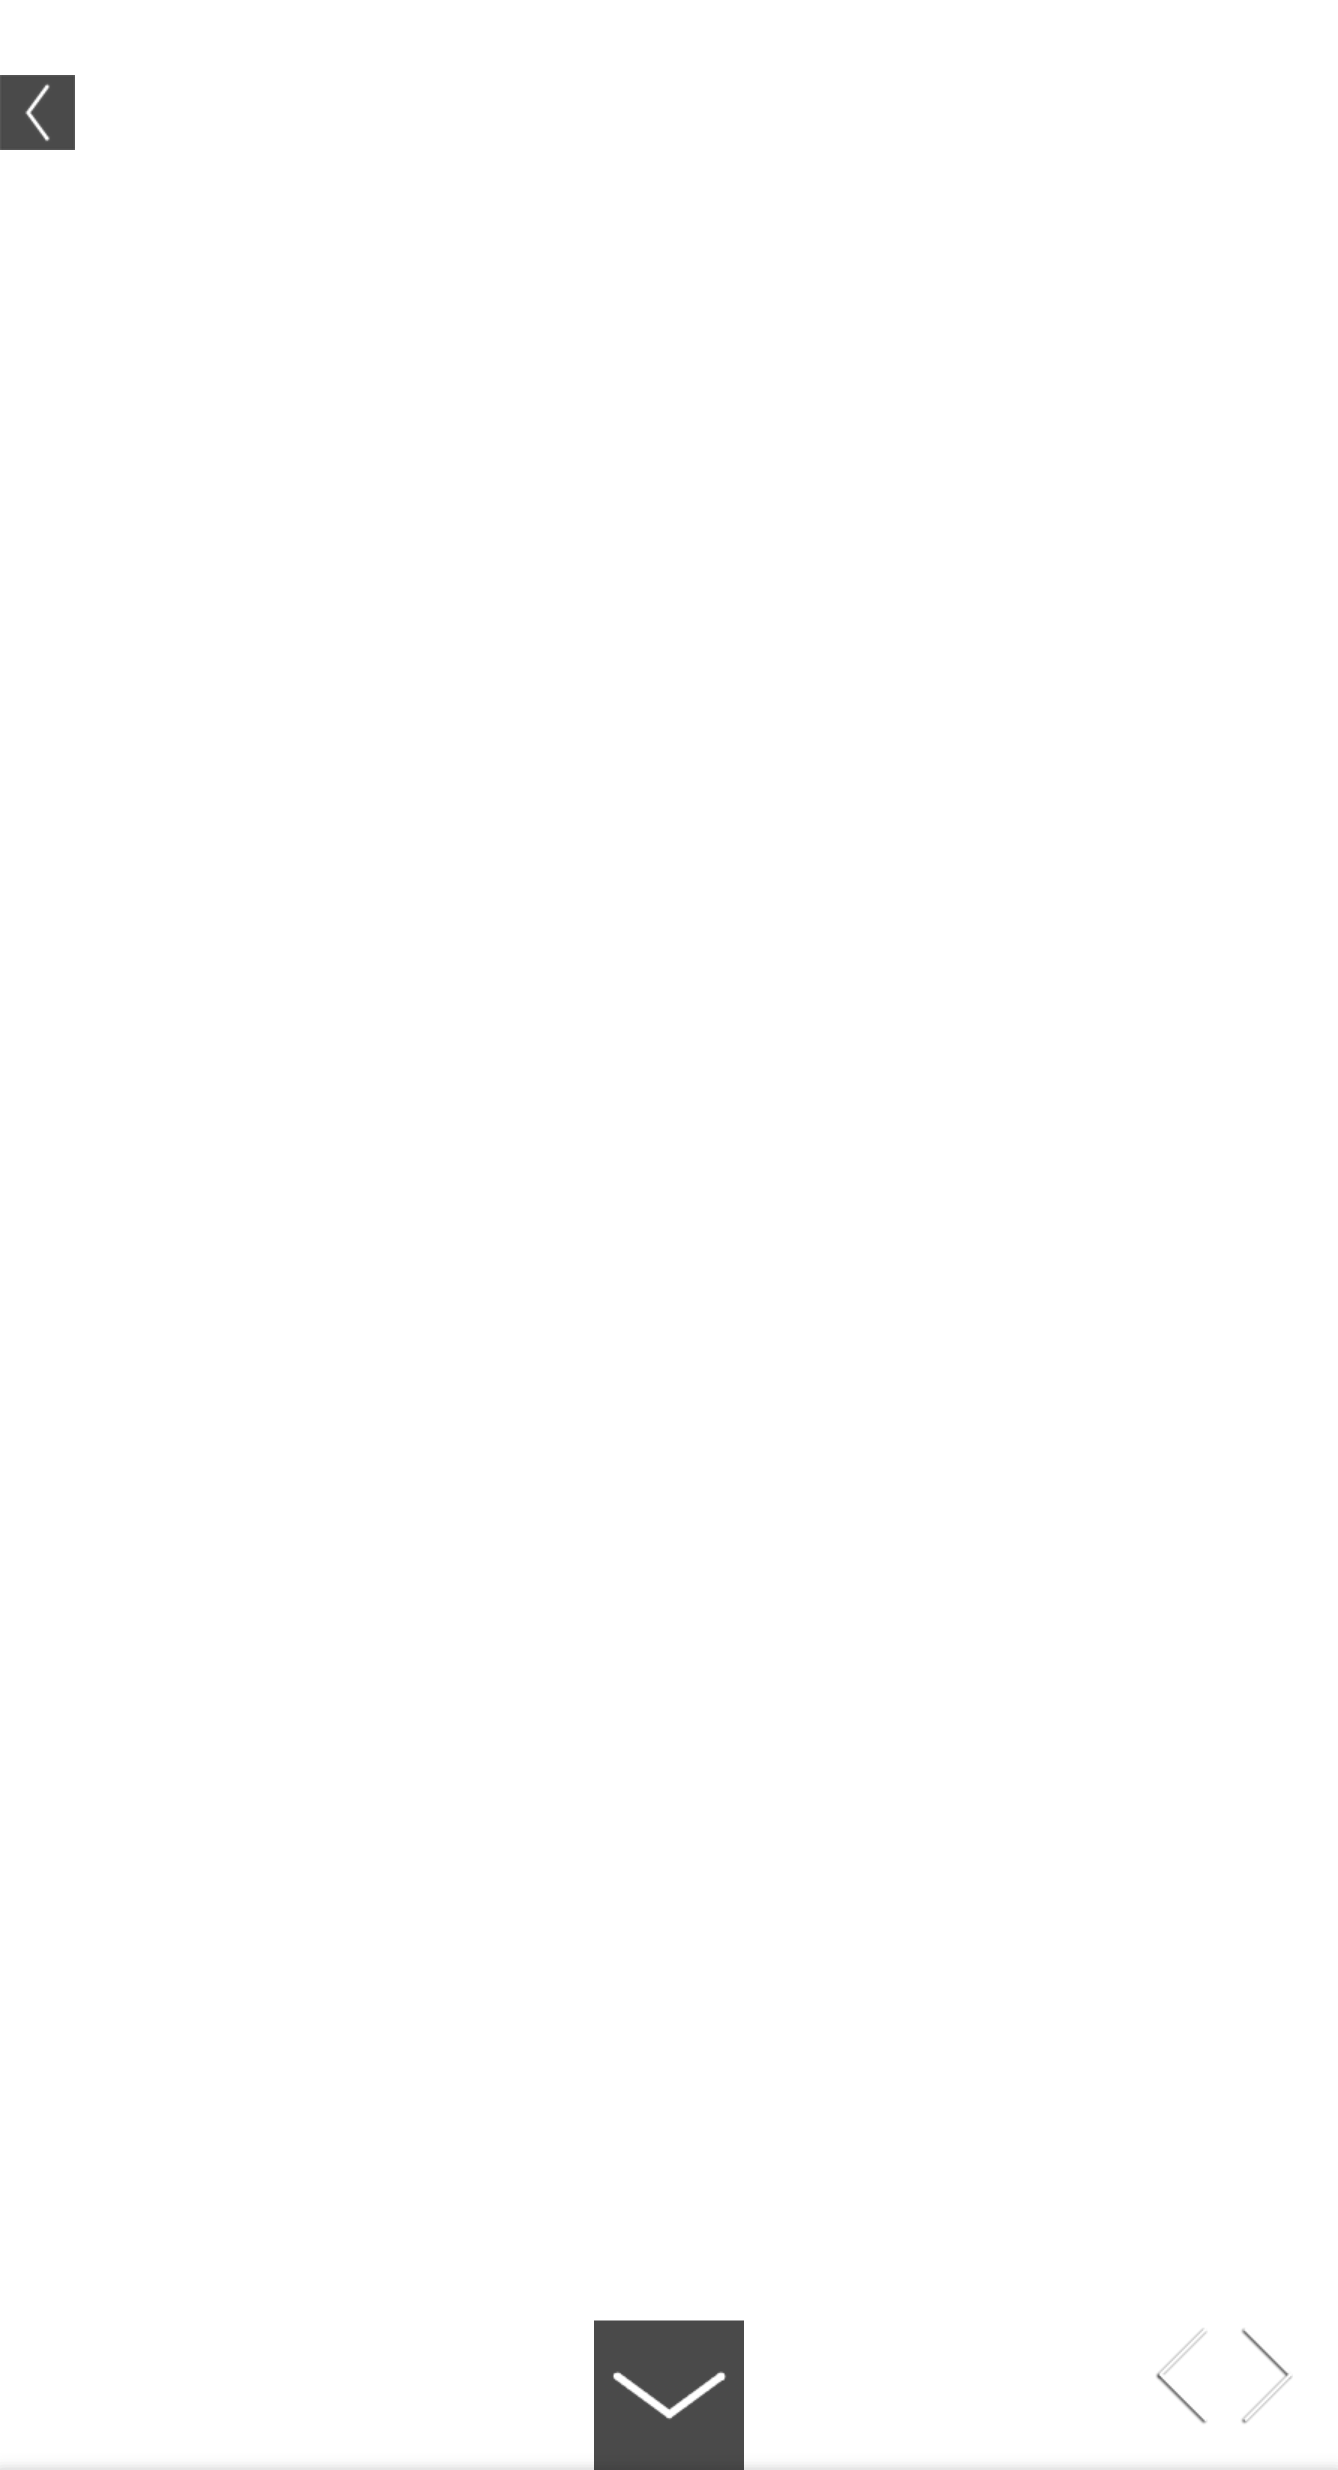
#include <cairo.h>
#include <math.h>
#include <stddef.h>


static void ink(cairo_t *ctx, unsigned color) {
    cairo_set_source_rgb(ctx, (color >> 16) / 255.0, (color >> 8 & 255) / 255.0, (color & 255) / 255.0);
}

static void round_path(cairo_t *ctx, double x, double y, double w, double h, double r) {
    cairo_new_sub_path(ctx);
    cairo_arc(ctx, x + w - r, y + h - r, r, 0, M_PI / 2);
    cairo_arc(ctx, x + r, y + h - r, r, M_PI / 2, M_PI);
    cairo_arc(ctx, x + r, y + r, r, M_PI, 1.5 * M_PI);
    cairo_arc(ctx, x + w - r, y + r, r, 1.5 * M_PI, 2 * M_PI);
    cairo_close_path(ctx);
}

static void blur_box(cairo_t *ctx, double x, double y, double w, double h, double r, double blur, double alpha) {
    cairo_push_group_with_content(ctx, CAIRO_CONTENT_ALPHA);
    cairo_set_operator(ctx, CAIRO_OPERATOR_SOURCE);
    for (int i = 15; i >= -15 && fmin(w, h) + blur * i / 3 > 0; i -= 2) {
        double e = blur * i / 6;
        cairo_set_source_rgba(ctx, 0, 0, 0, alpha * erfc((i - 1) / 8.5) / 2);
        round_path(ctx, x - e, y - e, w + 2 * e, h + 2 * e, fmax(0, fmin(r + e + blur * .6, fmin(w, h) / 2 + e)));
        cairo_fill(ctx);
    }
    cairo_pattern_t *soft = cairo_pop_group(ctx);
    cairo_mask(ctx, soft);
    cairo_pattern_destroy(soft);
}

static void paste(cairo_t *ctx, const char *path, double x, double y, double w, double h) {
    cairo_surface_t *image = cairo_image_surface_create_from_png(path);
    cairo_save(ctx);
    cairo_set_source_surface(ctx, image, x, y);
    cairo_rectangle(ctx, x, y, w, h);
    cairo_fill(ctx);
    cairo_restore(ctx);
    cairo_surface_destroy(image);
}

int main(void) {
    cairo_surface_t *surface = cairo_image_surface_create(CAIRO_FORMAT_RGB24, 1338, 2470);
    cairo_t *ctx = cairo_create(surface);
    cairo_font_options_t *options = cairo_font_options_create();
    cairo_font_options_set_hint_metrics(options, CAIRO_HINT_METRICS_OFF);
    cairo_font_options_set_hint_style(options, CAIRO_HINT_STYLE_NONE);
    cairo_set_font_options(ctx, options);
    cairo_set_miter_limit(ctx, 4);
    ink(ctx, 0xFFFFFF);
    cairo_paint(ctx);
    paste(ctx, "media/1.png", 0, 75, 75, 75);
    paste(ctx, "media/2.png", 594, 2320, 150, 150);
    paste(ctx, "media/3.png", 1155, 2327, 53, 98);
    paste(ctx, "media/4.png", 1240, 2327, 53, 98);
    ink(ctx, 0x000000);
    blur_box(ctx, 0, 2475, 1338, 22, 0, 9, 0.4);
    cairo_surface_write_to_png(surface, "image.png");
    cairo_font_options_destroy(options);
    cairo_destroy(ctx);
    cairo_surface_destroy(surface);
    return 0;
}
